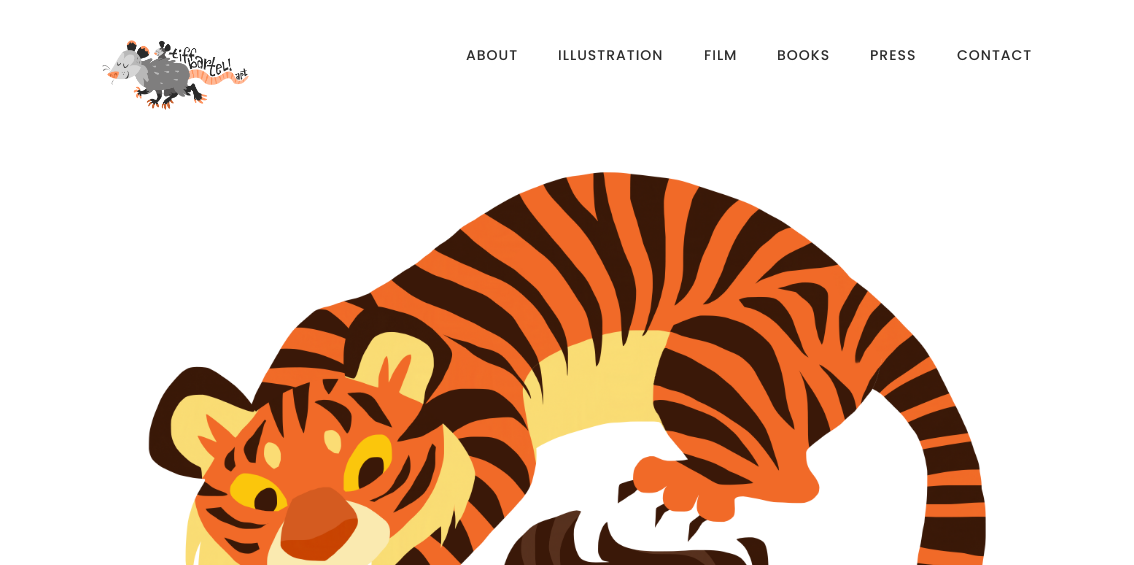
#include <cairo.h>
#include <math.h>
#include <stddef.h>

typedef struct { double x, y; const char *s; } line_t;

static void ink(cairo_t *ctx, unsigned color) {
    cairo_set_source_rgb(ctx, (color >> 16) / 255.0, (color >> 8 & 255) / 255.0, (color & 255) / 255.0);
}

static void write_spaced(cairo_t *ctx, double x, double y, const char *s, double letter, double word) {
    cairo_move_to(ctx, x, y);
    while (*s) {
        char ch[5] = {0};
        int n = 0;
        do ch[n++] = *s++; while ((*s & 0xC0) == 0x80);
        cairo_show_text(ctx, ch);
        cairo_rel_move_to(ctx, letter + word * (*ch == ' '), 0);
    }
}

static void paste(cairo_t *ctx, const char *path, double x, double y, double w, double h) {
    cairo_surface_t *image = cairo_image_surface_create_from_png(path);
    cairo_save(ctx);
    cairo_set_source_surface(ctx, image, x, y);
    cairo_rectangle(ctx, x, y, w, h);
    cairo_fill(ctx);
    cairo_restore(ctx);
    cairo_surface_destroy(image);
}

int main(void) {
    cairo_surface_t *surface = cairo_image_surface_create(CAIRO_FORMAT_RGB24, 1134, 565);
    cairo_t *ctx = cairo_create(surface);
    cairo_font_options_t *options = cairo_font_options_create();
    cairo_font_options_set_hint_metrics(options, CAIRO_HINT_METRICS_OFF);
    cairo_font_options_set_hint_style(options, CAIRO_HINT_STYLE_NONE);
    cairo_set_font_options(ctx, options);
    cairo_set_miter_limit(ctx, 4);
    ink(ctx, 0xFFFFFF);
    cairo_paint(ctx);
    paste(ctx, "media/1.png", 102, 40, 147, 70);
    cairo_select_font_face(ctx, "Poppins Medium", CAIRO_FONT_SLANT_NORMAL, CAIRO_FONT_WEIGHT_NORMAL);
    cairo_set_font_size(ctx, 14);
    ink(ctx, 0x2C2C2C);
    {
        static const line_t items[] = {
            {466, 60, "ABOUT"},
            {558, 60, "ILLUSTRATION"},
            {704, 60, "FILM"},
            {777, 60, "BOOKS"},
            {870, 60, "PRESS"},
            {957, 60, "CONTACT"},
        };
        for (size_t i = 0; i < sizeof items / sizeof *items; i++) {
            write_spaced(ctx, items[i].x, items[i].y, items[i].s, 1, 0);
        }
    }
    paste(ctx, "media/2.png", 148, 172, 838, 393);
    cairo_surface_write_to_png(surface, "image.png");
    cairo_font_options_destroy(options);
    cairo_destroy(ctx);
    cairo_surface_destroy(surface);
    return 0;
}
